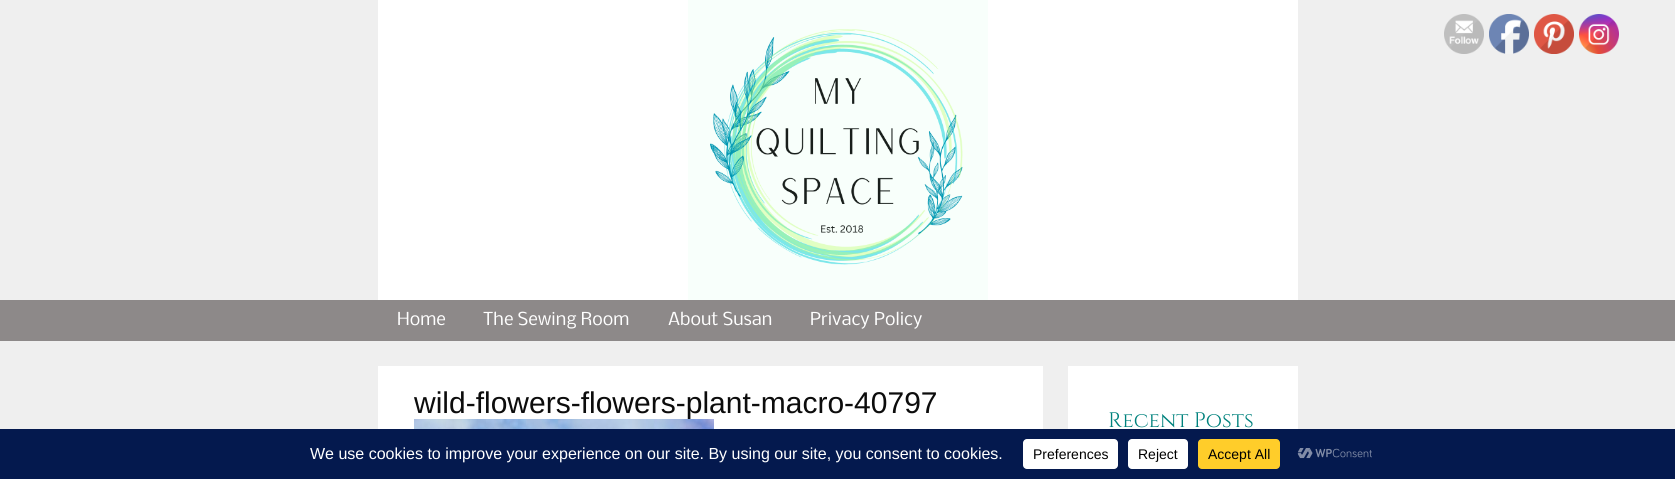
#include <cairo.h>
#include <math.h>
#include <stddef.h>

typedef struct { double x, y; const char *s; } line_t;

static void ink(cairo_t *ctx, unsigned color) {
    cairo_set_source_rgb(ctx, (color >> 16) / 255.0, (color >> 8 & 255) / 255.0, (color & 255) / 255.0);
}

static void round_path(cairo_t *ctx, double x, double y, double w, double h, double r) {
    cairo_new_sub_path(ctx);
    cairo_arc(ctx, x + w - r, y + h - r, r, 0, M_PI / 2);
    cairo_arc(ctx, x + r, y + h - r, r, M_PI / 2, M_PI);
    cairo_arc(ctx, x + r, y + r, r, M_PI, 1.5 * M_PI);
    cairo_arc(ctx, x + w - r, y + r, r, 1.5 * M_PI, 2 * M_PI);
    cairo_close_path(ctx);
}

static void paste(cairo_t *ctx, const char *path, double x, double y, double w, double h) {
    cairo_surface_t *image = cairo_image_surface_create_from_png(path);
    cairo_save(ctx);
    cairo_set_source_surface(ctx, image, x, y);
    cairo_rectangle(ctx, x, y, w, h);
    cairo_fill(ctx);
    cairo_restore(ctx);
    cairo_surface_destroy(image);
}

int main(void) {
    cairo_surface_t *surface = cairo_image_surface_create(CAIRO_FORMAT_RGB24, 1675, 479);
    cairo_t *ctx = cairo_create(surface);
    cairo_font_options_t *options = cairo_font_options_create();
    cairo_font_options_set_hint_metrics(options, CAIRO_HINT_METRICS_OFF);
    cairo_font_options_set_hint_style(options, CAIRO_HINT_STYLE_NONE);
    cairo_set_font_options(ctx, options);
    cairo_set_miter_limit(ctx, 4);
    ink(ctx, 0xEFEFEF);
    cairo_paint(ctx);
    ink(ctx, 0xFFFFFF);
    cairo_rectangle(ctx, 378, 0, 920, 300);
    cairo_fill(ctx);
    paste(ctx, "media/1.png", 688, 0, 300, 300);
    paste(ctx, "media/2.png", 1444, 14, 40, 40);
    paste(ctx, "media/3.png", 1489, 14, 40, 40);
    paste(ctx, "media/4.png", 1534, 14, 40, 40);
    paste(ctx, "media/5.png", 1579, 14, 40, 40);
    ink(ctx, 0x8D8989);
    cairo_rectangle(ctx, 0, 300, 1675, 41);
    cairo_fill(ctx);
    cairo_select_font_face(ctx, "Nobile", CAIRO_FONT_SLANT_NORMAL, CAIRO_FONT_WEIGHT_NORMAL);
    cairo_set_font_size(ctx, 17);
    ink(ctx, 0xFFFFFF);
    {
        static const line_t items[] = {
            {397, 325, "Home"},
            {483, 325, "The Sewing Room"},
            {668, 325, "About Susan"},
            {810, 325, "Privacy Policy"},
        };
        for (size_t i = 0; i < sizeof items / sizeof *items; i++) {
            cairo_move_to(ctx, items[i].x, items[i].y);
            cairo_show_text(ctx, items[i].s);
        }
    }
    cairo_rectangle(ctx, 378, 366, 665, 63);
    cairo_fill(ctx);
    cairo_select_font_face(ctx, "Arimo", CAIRO_FONT_SLANT_NORMAL, CAIRO_FONT_WEIGHT_NORMAL);
    cairo_set_font_size(ctx, 30);
    ink(ctx, 0x0C0C0C);
    cairo_move_to(ctx, 414, 413);
    cairo_show_text(ctx, "wild-flowers-flowers-plant-macro-40797");
    paste(ctx, "media/6.png", 414, 419, 300, 10);
    ink(ctx, 0xFFFFFF);
    cairo_rectangle(ctx, 1068, 366, 230, 63);
    cairo_fill(ctx);
    cairo_select_font_face(ctx, "Cinzel", CAIRO_FONT_SLANT_NORMAL, CAIRO_FONT_WEIGHT_NORMAL);
    cairo_set_font_size(ctx, 21);
    ink(ctx, 0x00827D);
    cairo_move_to(ctx, 1108, 427);
    cairo_show_text(ctx, "Recent Posts");
    ink(ctx, 0x04194E);
    cairo_rectangle(ctx, 0, 429, 1675, 50);
    cairo_fill(ctx);
    cairo_select_font_face(ctx, "Arimo", CAIRO_FONT_SLANT_NORMAL, CAIRO_FONT_WEIGHT_NORMAL);
    cairo_set_font_size(ctx, 16);
    ink(ctx, 0xFFFFFF);
    cairo_move_to(ctx, 310, 459);
    cairo_show_text(ctx, "We use cookies to improve your experience on our site. By using our site, you consent to cookies.");
    round_path(ctx, 1023, 439, 95, 30, 4);
    cairo_fill(ctx);
    cairo_select_font_face(ctx, "Liberation Sans", CAIRO_FONT_SLANT_NORMAL, CAIRO_FONT_WEIGHT_NORMAL);
    cairo_set_font_size(ctx, 14);
    ink(ctx, 0x000000);
    cairo_move_to(ctx, 1033, 459);
    cairo_show_text(ctx, "Preferences");
    ink(ctx, 0xFFFFFF);
    round_path(ctx, 1128, 439, 60, 30, 4);
    cairo_fill(ctx);
    ink(ctx, 0x000000);
    cairo_move_to(ctx, 1138, 459);
    cairo_show_text(ctx, "Reject");
    ink(ctx, 0xFFCD2A);
    round_path(ctx, 1198, 439, 82, 30, 4);
    cairo_fill(ctx);
    ink(ctx, 0x000000);
    cairo_move_to(ctx, 1208, 459);
    cairo_show_text(ctx, "Accept All");
    paste(ctx, "media/7.png", 1297, 448, 75, 11);
    cairo_surface_write_to_png(surface, "image.png");
    cairo_font_options_destroy(options);
    cairo_destroy(ctx);
    cairo_surface_destroy(surface);
    return 0;
}
